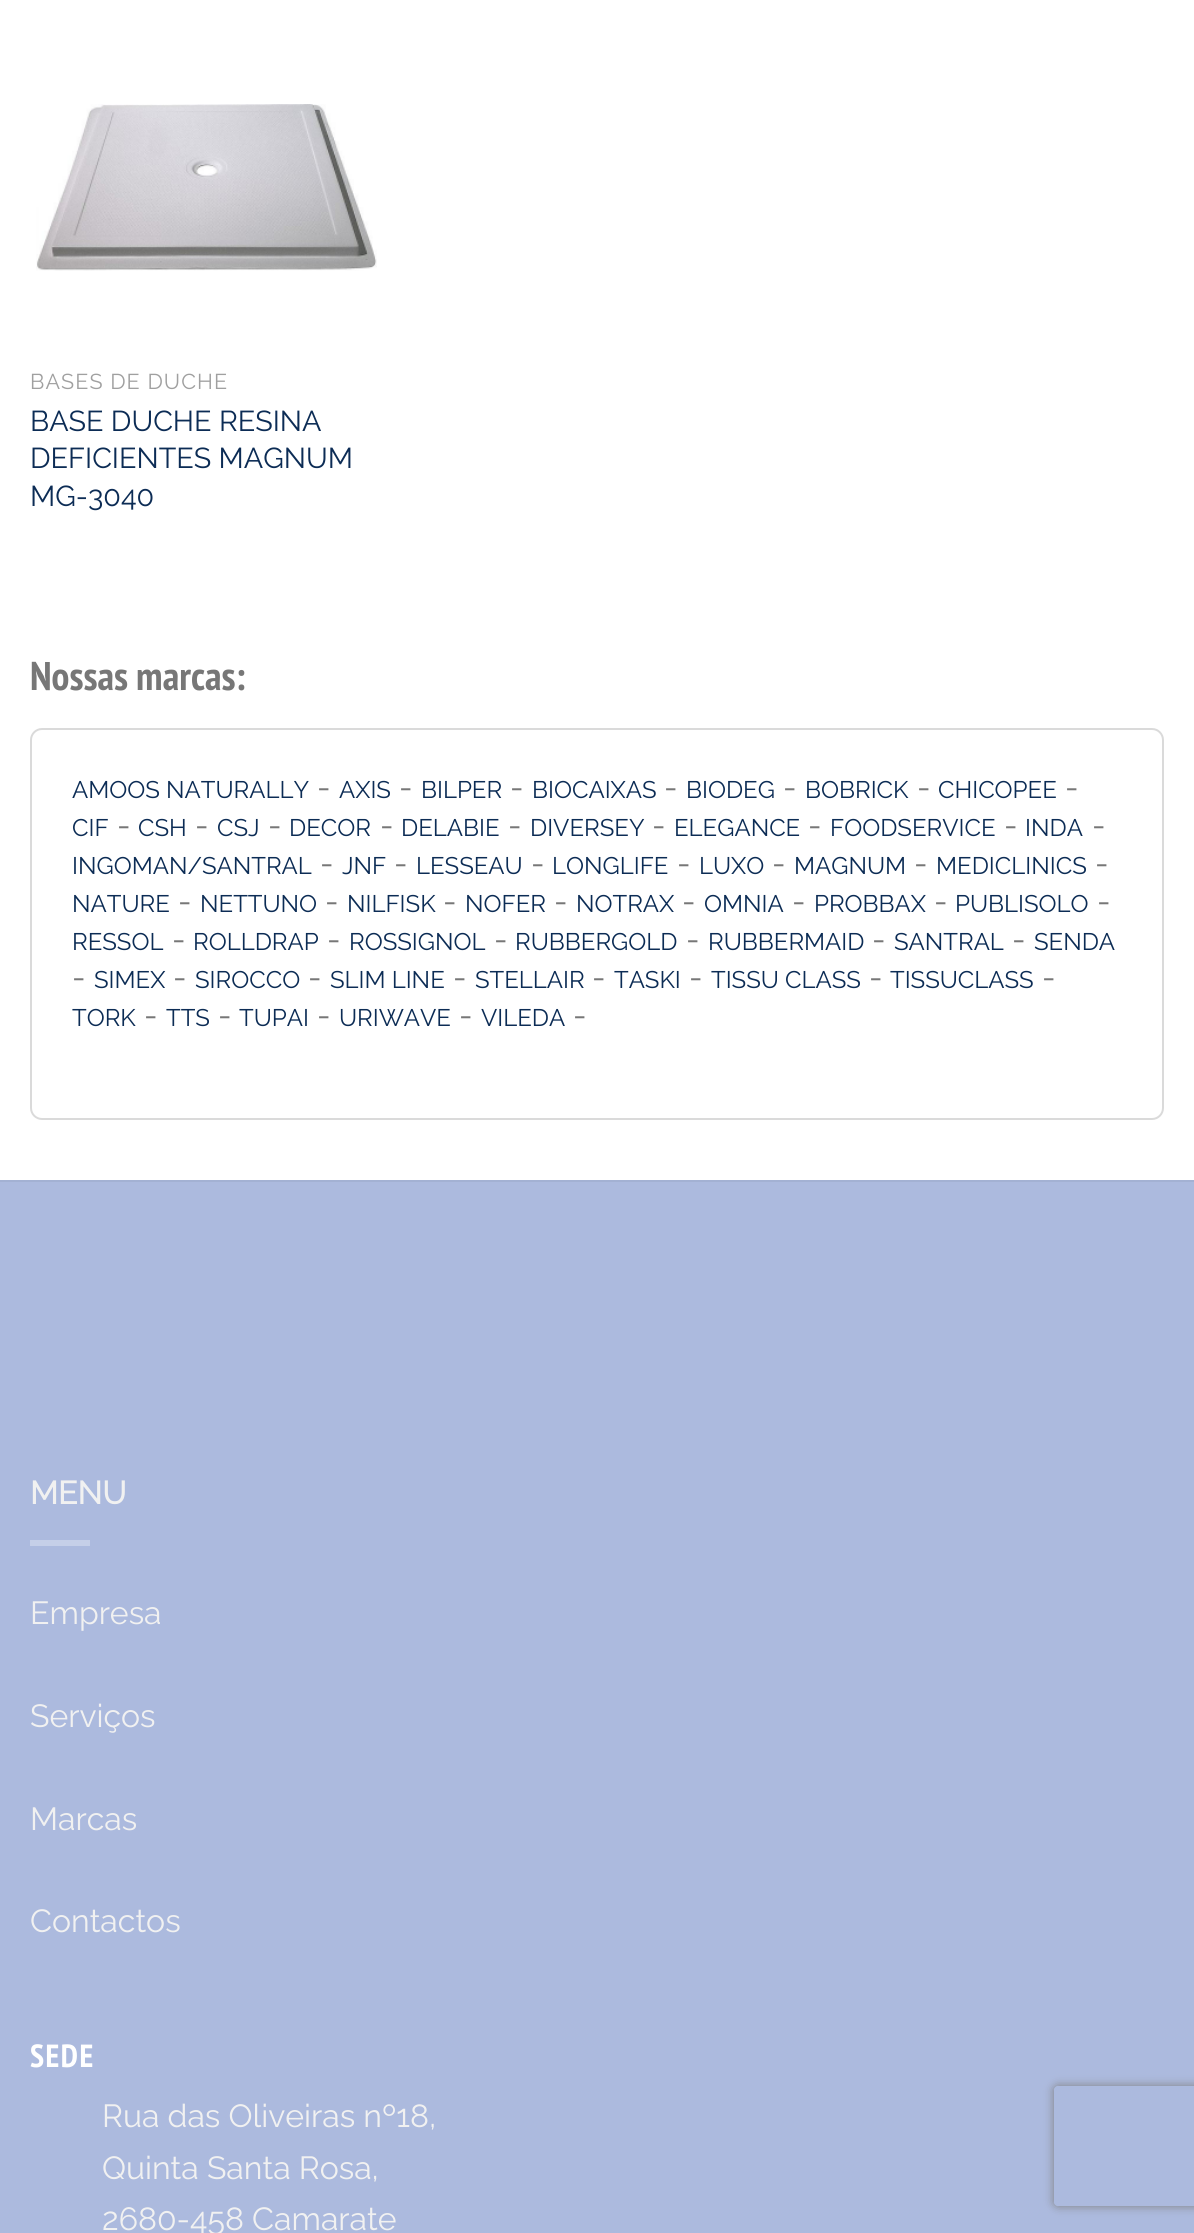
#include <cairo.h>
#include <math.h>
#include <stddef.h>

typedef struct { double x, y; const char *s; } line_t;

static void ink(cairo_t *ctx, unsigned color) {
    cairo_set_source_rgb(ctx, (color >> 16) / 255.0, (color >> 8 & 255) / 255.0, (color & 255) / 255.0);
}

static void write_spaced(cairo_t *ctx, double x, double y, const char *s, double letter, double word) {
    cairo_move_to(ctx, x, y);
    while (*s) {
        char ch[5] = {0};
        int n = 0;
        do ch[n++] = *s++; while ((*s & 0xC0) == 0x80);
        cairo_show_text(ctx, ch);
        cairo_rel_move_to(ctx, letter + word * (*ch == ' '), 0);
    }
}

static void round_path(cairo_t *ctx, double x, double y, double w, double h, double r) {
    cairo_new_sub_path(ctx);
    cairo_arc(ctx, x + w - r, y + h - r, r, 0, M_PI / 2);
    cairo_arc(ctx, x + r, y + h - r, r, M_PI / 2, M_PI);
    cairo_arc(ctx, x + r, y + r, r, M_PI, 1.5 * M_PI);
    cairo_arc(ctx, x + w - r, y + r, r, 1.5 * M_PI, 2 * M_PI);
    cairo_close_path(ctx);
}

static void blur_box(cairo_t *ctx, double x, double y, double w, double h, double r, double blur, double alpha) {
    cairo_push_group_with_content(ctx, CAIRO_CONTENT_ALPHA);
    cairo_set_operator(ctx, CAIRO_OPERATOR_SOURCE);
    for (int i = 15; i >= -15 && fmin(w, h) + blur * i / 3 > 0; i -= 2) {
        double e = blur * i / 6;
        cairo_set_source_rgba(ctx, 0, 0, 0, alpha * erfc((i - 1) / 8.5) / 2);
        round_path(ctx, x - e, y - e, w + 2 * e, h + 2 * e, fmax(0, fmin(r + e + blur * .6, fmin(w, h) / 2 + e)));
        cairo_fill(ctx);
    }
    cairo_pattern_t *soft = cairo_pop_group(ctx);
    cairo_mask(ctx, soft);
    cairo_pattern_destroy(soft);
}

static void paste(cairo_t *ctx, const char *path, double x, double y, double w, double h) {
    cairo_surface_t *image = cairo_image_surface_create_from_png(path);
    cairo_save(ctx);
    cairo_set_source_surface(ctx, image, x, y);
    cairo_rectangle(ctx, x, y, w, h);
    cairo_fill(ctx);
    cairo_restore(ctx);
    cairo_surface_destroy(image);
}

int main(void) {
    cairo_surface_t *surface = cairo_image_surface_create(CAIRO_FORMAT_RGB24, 1194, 2233);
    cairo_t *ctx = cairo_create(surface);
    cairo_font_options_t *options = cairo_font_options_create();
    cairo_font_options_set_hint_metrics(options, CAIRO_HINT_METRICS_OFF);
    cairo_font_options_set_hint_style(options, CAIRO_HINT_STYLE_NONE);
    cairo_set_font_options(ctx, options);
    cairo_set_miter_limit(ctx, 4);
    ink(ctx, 0xFFFFFF);
    cairo_paint(ctx);
    paste(ctx, "media/1.png", 36, 104, 341, 167);
    cairo_select_font_face(ctx, "Raleway Thin", CAIRO_FONT_SLANT_NORMAL, CAIRO_FONT_WEIGHT_NORMAL);
    cairo_set_font_size(ctx, 21.5);
    ink(ctx, 0xA0A0A0);
    write_spaced(ctx, 30, 389, "BASES DE DUCHE", 1.1, 0);
    cairo_set_font_size(ctx, 28.75);
    ink(ctx, 0x0C2C55);
    {
        static const line_t items[] = {
            {30, 431, "BASE DUCHE RESINA"},
            {30, 468, "DEFICIENTES MAGNUM"},
            {30, 506, "MG-3040"},
        };
        for (size_t i = 0; i < sizeof items / sizeof *items; i++) {
            cairo_move_to(ctx, items[i].x, items[i].y);
            cairo_show_text(ctx, items[i].s);
        }
    }
    cairo_select_font_face(ctx, "PT Sans Narrow", CAIRO_FONT_SLANT_NORMAL, CAIRO_FONT_WEIGHT_BOLD);
    cairo_set_font_size(ctx, 40);
    ink(ctx, 0x777777);
    cairo_move_to(ctx, 30, 690);
    cairo_show_text(ctx, "Nossas marcas:");
    round_path(ctx, 31, 729, 1132, 390, 11);
    ink(ctx, 0xDADADA);
    cairo_stroke(ctx);
    cairo_select_font_face(ctx, "Raleway Thin", CAIRO_FONT_SLANT_NORMAL, CAIRO_FONT_WEIGHT_NORMAL);
    cairo_set_font_size(ctx, 24);
    ink(ctx, 0x0C2C55);
    cairo_move_to(ctx, 72, 798);
    cairo_show_text(ctx, "AMOOS NATURALLY");
    cairo_set_font_size(ctx, 32);
    ink(ctx, 0x777777);
    cairo_move_to(ctx, 317, 798);
    cairo_show_text(ctx, "-");
    cairo_set_font_size(ctx, 24);
    ink(ctx, 0x0C2C55);
    cairo_move_to(ctx, 339, 798);
    cairo_show_text(ctx, "AXIS");
    cairo_set_font_size(ctx, 32);
    ink(ctx, 0x777777);
    cairo_move_to(ctx, 399, 798);
    cairo_show_text(ctx, "-");
    cairo_set_font_size(ctx, 24);
    ink(ctx, 0x0C2C55);
    cairo_move_to(ctx, 421, 798);
    cairo_show_text(ctx, "BILPER");
    cairo_set_font_size(ctx, 32);
    ink(ctx, 0x777777);
    cairo_move_to(ctx, 510, 798);
    cairo_show_text(ctx, "-");
    cairo_set_font_size(ctx, 24);
    ink(ctx, 0x0C2C55);
    cairo_move_to(ctx, 532, 798);
    cairo_show_text(ctx, "BIOCAIXAS");
    cairo_set_font_size(ctx, 32);
    ink(ctx, 0x777777);
    cairo_move_to(ctx, 664, 798);
    cairo_show_text(ctx, "-");
    cairo_set_font_size(ctx, 24);
    ink(ctx, 0x0C2C55);
    cairo_move_to(ctx, 686, 798);
    cairo_show_text(ctx, "BIODEG");
    cairo_set_font_size(ctx, 32);
    ink(ctx, 0x777777);
    cairo_move_to(ctx, 783, 798);
    cairo_show_text(ctx, "-");
    cairo_set_font_size(ctx, 24);
    ink(ctx, 0x0C2C55);
    cairo_move_to(ctx, 805, 798);
    cairo_show_text(ctx, "BOBRICK");
    cairo_set_font_size(ctx, 32);
    ink(ctx, 0x777777);
    cairo_move_to(ctx, 917, 798);
    cairo_show_text(ctx, "-");
    cairo_set_font_size(ctx, 24);
    ink(ctx, 0x0C2C55);
    cairo_move_to(ctx, 938, 798);
    cairo_show_text(ctx, "CHICOPEE");
    cairo_set_font_size(ctx, 32);
    ink(ctx, 0x777777);
    cairo_move_to(ctx, 1065, 798);
    cairo_show_text(ctx, "-");
    cairo_set_font_size(ctx, 24);
    ink(ctx, 0x0C2C55);
    cairo_move_to(ctx, 72, 836);
    cairo_show_text(ctx, "CIF");
    cairo_set_font_size(ctx, 32);
    ink(ctx, 0x777777);
    cairo_move_to(ctx, 117, 836);
    cairo_show_text(ctx, "-");
    cairo_set_font_size(ctx, 24);
    ink(ctx, 0x0C2C55);
    cairo_move_to(ctx, 138, 836);
    cairo_show_text(ctx, "CSH");
    cairo_set_font_size(ctx, 32);
    ink(ctx, 0x777777);
    cairo_move_to(ctx, 195, 836);
    cairo_show_text(ctx, "-");
    cairo_set_font_size(ctx, 24);
    ink(ctx, 0x0C2C55);
    cairo_move_to(ctx, 217, 836);
    cairo_show_text(ctx, "CSJ");
    cairo_set_font_size(ctx, 32);
    ink(ctx, 0x777777);
    cairo_move_to(ctx, 268, 836);
    cairo_show_text(ctx, "-");
    cairo_set_font_size(ctx, 24);
    ink(ctx, 0x0C2C55);
    cairo_move_to(ctx, 289, 836);
    cairo_show_text(ctx, "DECOR");
    cairo_set_font_size(ctx, 32);
    ink(ctx, 0x777777);
    cairo_move_to(ctx, 380, 836);
    cairo_show_text(ctx, "-");
    cairo_set_font_size(ctx, 24);
    ink(ctx, 0x0C2C55);
    cairo_move_to(ctx, 401, 836);
    cairo_show_text(ctx, "DELABIE");
    cairo_set_font_size(ctx, 32);
    ink(ctx, 0x777777);
    cairo_move_to(ctx, 508, 836);
    cairo_show_text(ctx, "-");
    cairo_set_font_size(ctx, 24);
    ink(ctx, 0x0C2C55);
    cairo_move_to(ctx, 530, 836);
    cairo_show_text(ctx, "DIVERSEY");
    cairo_set_font_size(ctx, 32);
    ink(ctx, 0x777777);
    cairo_move_to(ctx, 652, 836);
    cairo_show_text(ctx, "-");
    cairo_set_font_size(ctx, 24);
    ink(ctx, 0x0C2C55);
    cairo_move_to(ctx, 674, 836);
    cairo_show_text(ctx, "ELEGANCE");
    cairo_set_font_size(ctx, 32);
    ink(ctx, 0x777777);
    cairo_move_to(ctx, 808, 836);
    cairo_show_text(ctx, "-");
    cairo_set_font_size(ctx, 24);
    ink(ctx, 0x0C2C55);
    cairo_move_to(ctx, 830, 836);
    cairo_show_text(ctx, "FOODSERVICE");
    cairo_set_font_size(ctx, 32);
    ink(ctx, 0x777777);
    cairo_move_to(ctx, 1004, 836);
    cairo_show_text(ctx, "-");
    cairo_set_font_size(ctx, 24);
    ink(ctx, 0x0C2C55);
    cairo_move_to(ctx, 1025, 836);
    cairo_show_text(ctx, "INDA");
    cairo_set_font_size(ctx, 32);
    ink(ctx, 0x777777);
    cairo_move_to(ctx, 1092, 836);
    cairo_show_text(ctx, "-");
    cairo_set_font_size(ctx, 24);
    ink(ctx, 0x0C2C55);
    cairo_move_to(ctx, 72, 874);
    cairo_show_text(ctx, "INGOMAN/SANTRAL");
    cairo_set_font_size(ctx, 32);
    ink(ctx, 0x777777);
    cairo_move_to(ctx, 320, 874);
    cairo_show_text(ctx, "-");
    cairo_set_font_size(ctx, 24);
    ink(ctx, 0x0C2C55);
    cairo_move_to(ctx, 342, 874);
    cairo_show_text(ctx, "JNF");
    cairo_set_font_size(ctx, 32);
    ink(ctx, 0x777777);
    cairo_move_to(ctx, 394, 874);
    cairo_show_text(ctx, "-");
    cairo_set_font_size(ctx, 24);
    ink(ctx, 0x0C2C55);
    cairo_move_to(ctx, 416, 874);
    cairo_show_text(ctx, "LESSEAU");
    cairo_set_font_size(ctx, 32);
    ink(ctx, 0x777777);
    cairo_move_to(ctx, 531, 874);
    cairo_show_text(ctx, "-");
    cairo_set_font_size(ctx, 24);
    ink(ctx, 0x0C2C55);
    cairo_move_to(ctx, 552, 874);
    cairo_show_text(ctx, "LONGLIFE");
    cairo_set_font_size(ctx, 32);
    ink(ctx, 0x777777);
    cairo_move_to(ctx, 677, 874);
    cairo_show_text(ctx, "-");
    cairo_set_font_size(ctx, 24);
    ink(ctx, 0x0C2C55);
    cairo_move_to(ctx, 699, 874);
    cairo_show_text(ctx, "LUXO");
    cairo_set_font_size(ctx, 32);
    ink(ctx, 0x777777);
    cairo_move_to(ctx, 772, 874);
    cairo_show_text(ctx, "-");
    cairo_set_font_size(ctx, 24);
    ink(ctx, 0x0C2C55);
    cairo_move_to(ctx, 794, 874);
    cairo_show_text(ctx, "MAGNUM");
    cairo_set_font_size(ctx, 32);
    ink(ctx, 0x777777);
    cairo_move_to(ctx, 914, 874);
    cairo_show_text(ctx, "-");
    cairo_set_font_size(ctx, 24);
    ink(ctx, 0x0C2C55);
    cairo_move_to(ctx, 936, 874);
    cairo_show_text(ctx, "MEDICLINICS");
    cairo_set_font_size(ctx, 32);
    ink(ctx, 0x777777);
    cairo_move_to(ctx, 1095, 874);
    cairo_show_text(ctx, "-");
    cairo_set_font_size(ctx, 24);
    ink(ctx, 0x0C2C55);
    cairo_move_to(ctx, 72, 912);
    cairo_show_text(ctx, "NATURE");
    cairo_set_font_size(ctx, 32);
    ink(ctx, 0x777777);
    cairo_move_to(ctx, 178, 912);
    cairo_show_text(ctx, "-");
    cairo_set_font_size(ctx, 24);
    ink(ctx, 0x0C2C55);
    cairo_move_to(ctx, 200, 912);
    cairo_show_text(ctx, "NETTUNO");
    cairo_set_font_size(ctx, 32);
    ink(ctx, 0x777777);
    cairo_move_to(ctx, 325, 912);
    cairo_show_text(ctx, "-");
    cairo_set_font_size(ctx, 24);
    ink(ctx, 0x0C2C55);
    cairo_move_to(ctx, 347, 912);
    cairo_show_text(ctx, "NILFISK");
    cairo_set_font_size(ctx, 32);
    ink(ctx, 0x777777);
    cairo_move_to(ctx, 443, 912);
    cairo_show_text(ctx, "-");
    cairo_set_font_size(ctx, 24);
    ink(ctx, 0x0C2C55);
    cairo_move_to(ctx, 465, 912);
    cairo_show_text(ctx, "NOFER");
    cairo_set_font_size(ctx, 32);
    ink(ctx, 0x777777);
    cairo_move_to(ctx, 554, 912);
    cairo_show_text(ctx, "-");
    cairo_set_font_size(ctx, 24);
    ink(ctx, 0x0C2C55);
    cairo_move_to(ctx, 576, 912);
    cairo_show_text(ctx, "NOTRAX");
    cairo_set_font_size(ctx, 32);
    ink(ctx, 0x777777);
    cairo_move_to(ctx, 682, 912);
    cairo_show_text(ctx, "-");
    cairo_set_font_size(ctx, 24);
    ink(ctx, 0x0C2C55);
    cairo_move_to(ctx, 704, 912);
    cairo_show_text(ctx, "OMNIA");
    cairo_set_font_size(ctx, 32);
    ink(ctx, 0x777777);
    cairo_move_to(ctx, 792, 912);
    cairo_show_text(ctx, "-");
    cairo_set_font_size(ctx, 24);
    ink(ctx, 0x0C2C55);
    cairo_move_to(ctx, 814, 912);
    cairo_show_text(ctx, "PROBBAX");
    cairo_set_font_size(ctx, 32);
    ink(ctx, 0x777777);
    cairo_move_to(ctx, 934, 912);
    cairo_show_text(ctx, "-");
    cairo_set_font_size(ctx, 24);
    ink(ctx, 0x0C2C55);
    cairo_move_to(ctx, 955, 912);
    cairo_show_text(ctx, "PUBLISOLO");
    cairo_set_font_size(ctx, 32);
    ink(ctx, 0x777777);
    cairo_move_to(ctx, 1097, 912);
    cairo_show_text(ctx, "-");
    cairo_set_font_size(ctx, 24);
    ink(ctx, 0x0C2C55);
    cairo_move_to(ctx, 72, 950);
    cairo_show_text(ctx, "RESSOL");
    cairo_set_font_size(ctx, 32);
    ink(ctx, 0x777777);
    cairo_move_to(ctx, 172, 950);
    cairo_show_text(ctx, "-");
    cairo_set_font_size(ctx, 24);
    ink(ctx, 0x0C2C55);
    cairo_move_to(ctx, 193, 950);
    cairo_show_text(ctx, "ROLLDRAP");
    cairo_set_font_size(ctx, 32);
    ink(ctx, 0x777777);
    cairo_move_to(ctx, 327, 950);
    cairo_show_text(ctx, "-");
    cairo_set_font_size(ctx, 24);
    ink(ctx, 0x0C2C55);
    cairo_move_to(ctx, 349, 950);
    cairo_show_text(ctx, "ROSSIGNOL");
    cairo_set_font_size(ctx, 32);
    ink(ctx, 0x777777);
    cairo_move_to(ctx, 494, 950);
    cairo_show_text(ctx, "-");
    cairo_set_font_size(ctx, 24);
    ink(ctx, 0x0C2C55);
    cairo_move_to(ctx, 515, 950);
    cairo_show_text(ctx, "RUBBERGOLD");
    cairo_set_font_size(ctx, 32);
    ink(ctx, 0x777777);
    cairo_move_to(ctx, 686, 950);
    cairo_show_text(ctx, "-");
    cairo_set_font_size(ctx, 24);
    ink(ctx, 0x0C2C55);
    cairo_move_to(ctx, 708, 950);
    cairo_show_text(ctx, "RUBBERMAID");
    cairo_set_font_size(ctx, 32);
    ink(ctx, 0x777777);
    cairo_move_to(ctx, 872, 950);
    cairo_show_text(ctx, "-");
    cairo_set_font_size(ctx, 24);
    ink(ctx, 0x0C2C55);
    cairo_move_to(ctx, 894, 950);
    cairo_show_text(ctx, "SANTRAL");
    cairo_set_font_size(ctx, 32);
    ink(ctx, 0x777777);
    cairo_move_to(ctx, 1012, 950);
    cairo_show_text(ctx, "-");
    cairo_set_font_size(ctx, 24);
    ink(ctx, 0x0C2C55);
    cairo_move_to(ctx, 1034, 950);
    cairo_show_text(ctx, "SENDA");
    cairo_set_font_size(ctx, 32);
    ink(ctx, 0x777777);
    cairo_move_to(ctx, 72, 988);
    cairo_show_text(ctx, "-");
    cairo_set_font_size(ctx, 24);
    ink(ctx, 0x0C2C55);
    cairo_move_to(ctx, 94, 988);
    cairo_show_text(ctx, "SIMEX");
    cairo_set_font_size(ctx, 32);
    ink(ctx, 0x777777);
    cairo_move_to(ctx, 173, 988);
    cairo_show_text(ctx, "-");
    cairo_set_font_size(ctx, 24);
    ink(ctx, 0x0C2C55);
    cairo_move_to(ctx, 195, 988);
    cairo_show_text(ctx, "SIROCCO");
    cairo_set_font_size(ctx, 32);
    ink(ctx, 0x777777);
    cairo_move_to(ctx, 308, 988);
    cairo_show_text(ctx, "-");
    cairo_set_font_size(ctx, 24);
    ink(ctx, 0x0C2C55);
    cairo_move_to(ctx, 330, 988);
    cairo_show_text(ctx, "SLIM LINE");
    cairo_set_font_size(ctx, 32);
    ink(ctx, 0x777777);
    cairo_move_to(ctx, 453, 988);
    cairo_show_text(ctx, "-");
    cairo_set_font_size(ctx, 24);
    ink(ctx, 0x0C2C55);
    cairo_move_to(ctx, 475, 988);
    cairo_show_text(ctx, "STELLAIR");
    cairo_set_font_size(ctx, 32);
    ink(ctx, 0x777777);
    cairo_move_to(ctx, 592, 988);
    cairo_show_text(ctx, "-");
    cairo_set_font_size(ctx, 24);
    ink(ctx, 0x0C2C55);
    cairo_move_to(ctx, 614, 988);
    cairo_show_text(ctx, "TASKI");
    cairo_set_font_size(ctx, 32);
    ink(ctx, 0x777777);
    cairo_move_to(ctx, 689, 988);
    cairo_show_text(ctx, "-");
    cairo_set_font_size(ctx, 24);
    ink(ctx, 0x0C2C55);
    cairo_move_to(ctx, 711, 988);
    cairo_show_text(ctx, "TISSU CLASS");
    cairo_set_font_size(ctx, 32);
    ink(ctx, 0x777777);
    cairo_move_to(ctx, 869, 988);
    cairo_show_text(ctx, "-");
    cairo_set_font_size(ctx, 24);
    ink(ctx, 0x0C2C55);
    cairo_move_to(ctx, 890, 988);
    cairo_show_text(ctx, "TISSUCLASS");
    cairo_set_font_size(ctx, 32);
    ink(ctx, 0x777777);
    cairo_move_to(ctx, 1042, 988);
    cairo_show_text(ctx, "-");
    cairo_set_font_size(ctx, 24);
    ink(ctx, 0x0C2C55);
    cairo_move_to(ctx, 72, 1026);
    cairo_show_text(ctx, "TORK");
    cairo_set_font_size(ctx, 32);
    ink(ctx, 0x777777);
    cairo_move_to(ctx, 144, 1026);
    cairo_show_text(ctx, "-");
    cairo_set_font_size(ctx, 24);
    ink(ctx, 0x0C2C55);
    cairo_move_to(ctx, 166, 1026);
    cairo_show_text(ctx, "TTS");
    cairo_set_font_size(ctx, 32);
    ink(ctx, 0x777777);
    cairo_move_to(ctx, 218, 1026);
    cairo_show_text(ctx, "-");
    cairo_set_font_size(ctx, 24);
    ink(ctx, 0x0C2C55);
    cairo_move_to(ctx, 239, 1026);
    cairo_show_text(ctx, "TUPAI");
    cairo_set_font_size(ctx, 32);
    ink(ctx, 0x777777);
    cairo_move_to(ctx, 317, 1026);
    cairo_show_text(ctx, "-");
    cairo_set_font_size(ctx, 24);
    ink(ctx, 0x0C2C55);
    cairo_move_to(ctx, 339, 1026);
    cairo_show_text(ctx, "URIWAVE");
    cairo_set_font_size(ctx, 32);
    ink(ctx, 0x777777);
    cairo_move_to(ctx, 459, 1026);
    cairo_show_text(ctx, "-");
    cairo_set_font_size(ctx, 24);
    ink(ctx, 0x0C2C55);
    cairo_move_to(ctx, 481, 1026);
    cairo_show_text(ctx, "VILEDA");
    cairo_set_font_size(ctx, 32);
    ink(ctx, 0x777777);
    cairo_move_to(ctx, 573, 1026);
    cairo_show_text(ctx, "-");
    ink(ctx, 0xACBADE);
    cairo_rectangle(ctx, 0, 1182, 1194, 1051);
    cairo_fill(ctx);
    ink(ctx, 0xA3B1D3);
    cairo_rectangle(ctx, 0, 1180, 1194, 2);
    cairo_fill(ctx);
    cairo_select_font_face(ctx, "Raleway", CAIRO_FONT_SLANT_NORMAL, CAIRO_FONT_WEIGHT_BOLD);
    ink(ctx, 0xF1F1F1);
    cairo_move_to(ctx, 30, 1504);
    cairo_show_text(ctx, "MENU");
    ink(ctx, 0xC5CFE8);
    cairo_rectangle(ctx, 30, 1540, 60, 6);
    cairo_fill(ctx);
    cairo_select_font_face(ctx, "Raleway Thin", CAIRO_FONT_SLANT_NORMAL, CAIRO_FONT_WEIGHT_NORMAL);
    ink(ctx, 0xF1F1F1);
    {
        static const line_t items[] = {
            {30, 1624, "Empresa"},
            {30, 1727, "Serviços"},
            {30, 1830, "Marcas"},
            {30, 1932, "Contactos"},
        };
        for (size_t i = 0; i < sizeof items / sizeof *items; i++) {
            cairo_move_to(ctx, items[i].x, items[i].y);
            cairo_show_text(ctx, items[i].s);
        }
    }
    cairo_select_font_face(ctx, "PT Sans Narrow", CAIRO_FONT_SLANT_NORMAL, CAIRO_FONT_WEIGHT_BOLD);
    ink(ctx, 0xFFFFFF);
    write_spaced(ctx, 30, 2067, "SEDE", 1.5, 0);
    cairo_select_font_face(ctx, "Raleway Thin", CAIRO_FONT_SLANT_NORMAL, CAIRO_FONT_WEIGHT_NORMAL);
    ink(ctx, 0xF1F1F1);
    {
        static const line_t items[] = {
            {102, 2127, "Rua das Oliveiras nº18,"},
            {102, 2179, "Quinta Santa Rosa,"},
            {102, 2230, "2680-458 Camarate"},
        };
        for (size_t i = 0; i < sizeof items / sizeof *items; i++) {
            cairo_move_to(ctx, items[i].x, items[i].y);
            cairo_show_text(ctx, items[i].s);
        }
    }
    cairo_save(ctx);
    cairo_set_fill_rule(ctx, CAIRO_FILL_RULE_EVEN_ODD);
    cairo_new_path(ctx);
    cairo_move_to(ctx, 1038, 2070);
    cairo_line_to(ctx, 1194, 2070);
    cairo_line_to(ctx, 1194, 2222);
    cairo_line_to(ctx, 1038, 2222);
    cairo_close_path(ctx);
    cairo_move_to(ctx, 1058, 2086);
    cairo_line_to(ctx, 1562, 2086);
    cairo_curve_to(ctx, 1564, 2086, 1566, 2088, 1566, 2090);
    cairo_line_to(ctx, 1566, 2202);
    cairo_curve_to(ctx, 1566, 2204, 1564, 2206, 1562, 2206);
    cairo_line_to(ctx, 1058, 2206);
    cairo_curve_to(ctx, 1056, 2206, 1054, 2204, 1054, 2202);
    cairo_line_to(ctx, 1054, 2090);
    cairo_curve_to(ctx, 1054, 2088, 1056, 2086, 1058, 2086);
    cairo_close_path(ctx);
    cairo_clip(ctx);
    ink(ctx, 0x808080);
    blur_box(ctx, 1054, 2086, 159, 120, 4, 5, 1);
    cairo_restore(ctx);
    cairo_surface_write_to_png(surface, "image.png");
    cairo_font_options_destroy(options);
    cairo_destroy(ctx);
    cairo_surface_destroy(surface);
    return 0;
}
